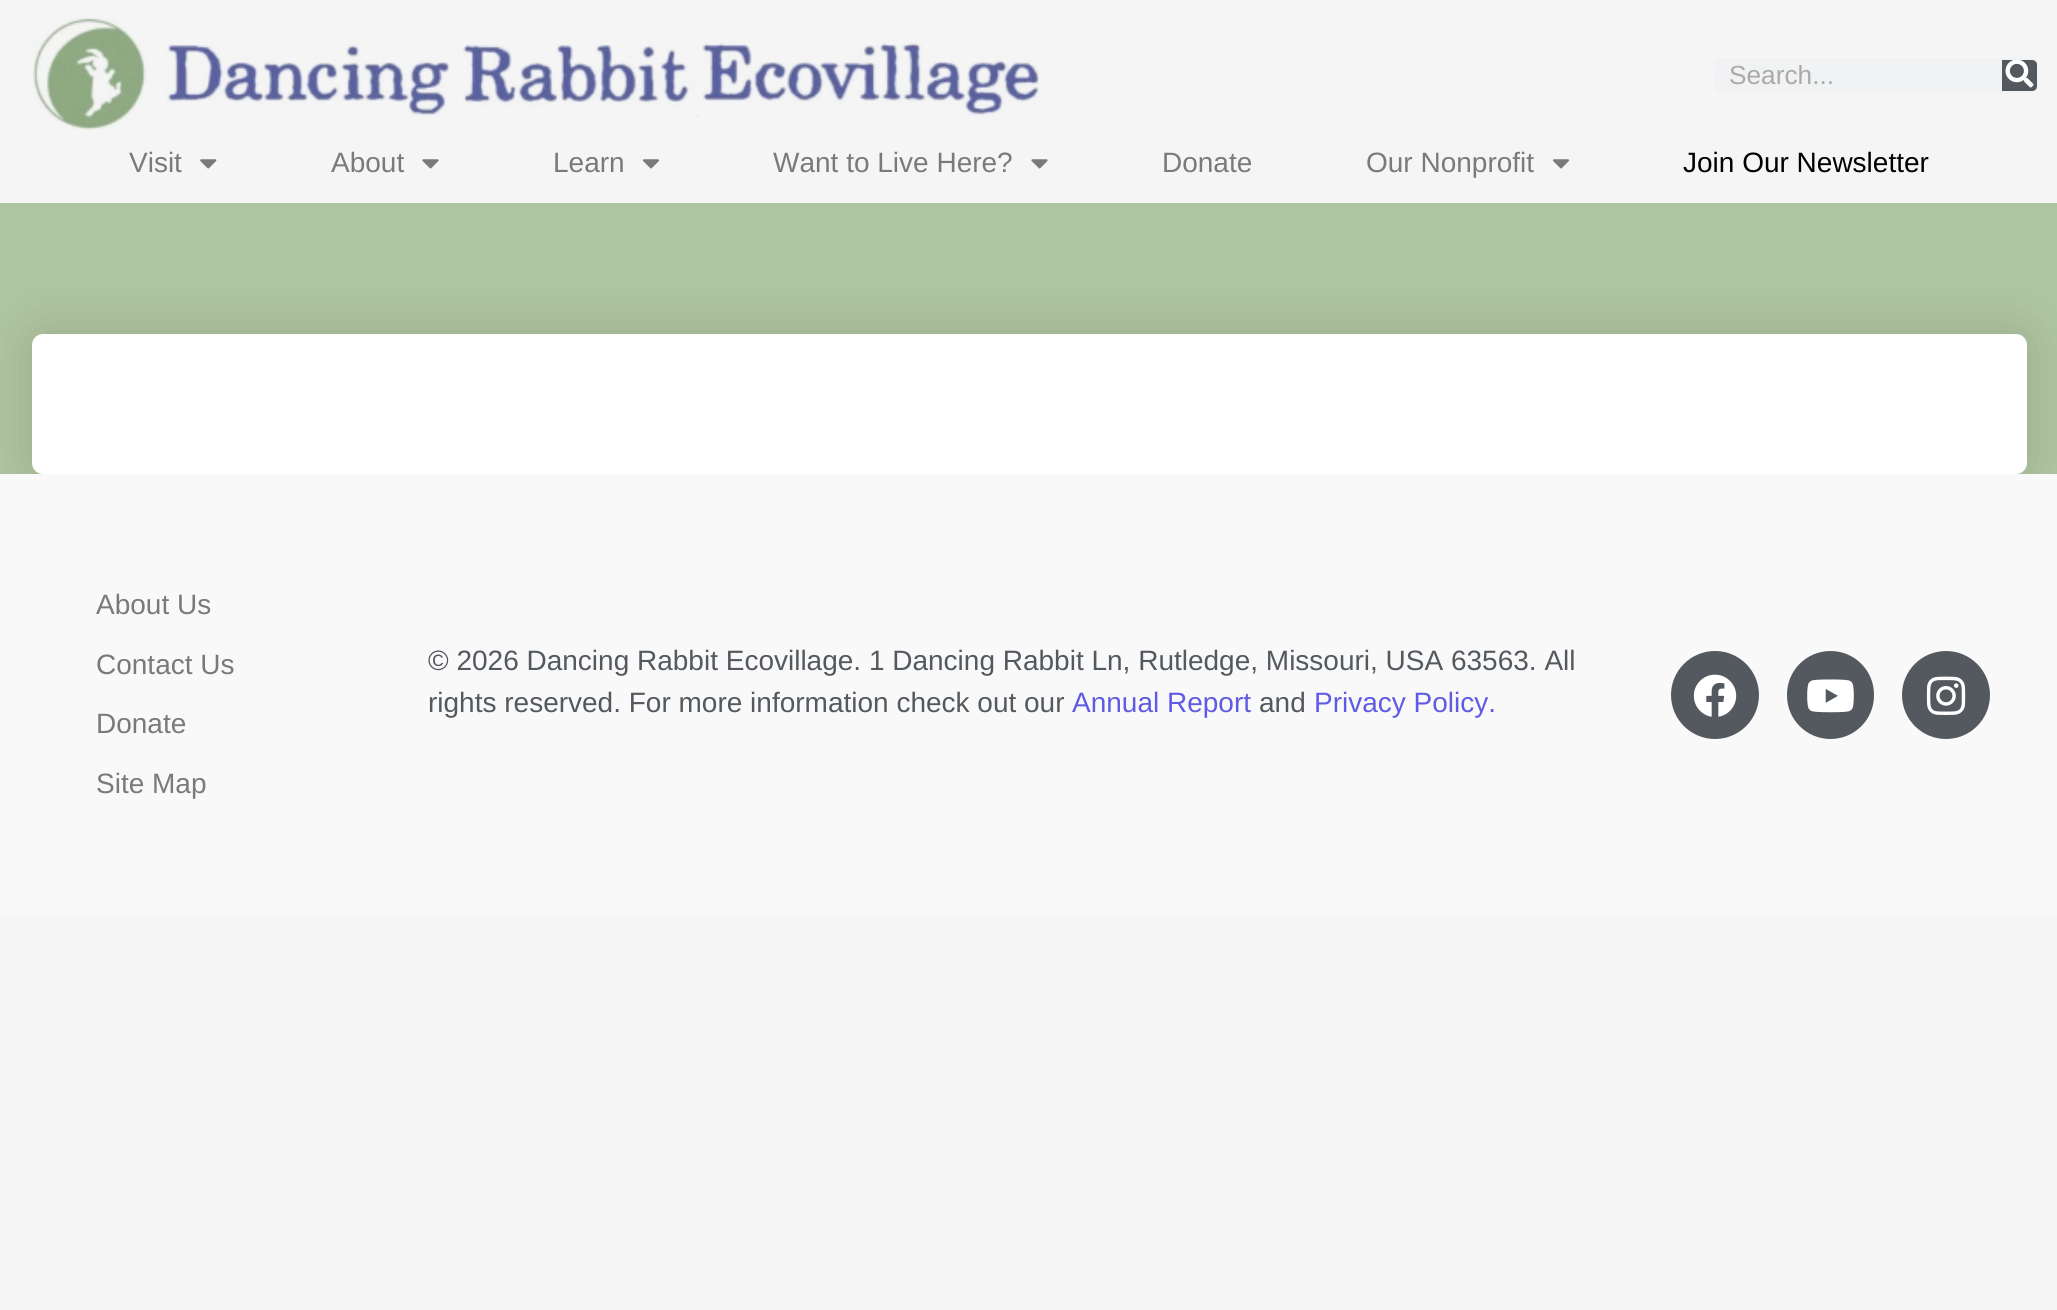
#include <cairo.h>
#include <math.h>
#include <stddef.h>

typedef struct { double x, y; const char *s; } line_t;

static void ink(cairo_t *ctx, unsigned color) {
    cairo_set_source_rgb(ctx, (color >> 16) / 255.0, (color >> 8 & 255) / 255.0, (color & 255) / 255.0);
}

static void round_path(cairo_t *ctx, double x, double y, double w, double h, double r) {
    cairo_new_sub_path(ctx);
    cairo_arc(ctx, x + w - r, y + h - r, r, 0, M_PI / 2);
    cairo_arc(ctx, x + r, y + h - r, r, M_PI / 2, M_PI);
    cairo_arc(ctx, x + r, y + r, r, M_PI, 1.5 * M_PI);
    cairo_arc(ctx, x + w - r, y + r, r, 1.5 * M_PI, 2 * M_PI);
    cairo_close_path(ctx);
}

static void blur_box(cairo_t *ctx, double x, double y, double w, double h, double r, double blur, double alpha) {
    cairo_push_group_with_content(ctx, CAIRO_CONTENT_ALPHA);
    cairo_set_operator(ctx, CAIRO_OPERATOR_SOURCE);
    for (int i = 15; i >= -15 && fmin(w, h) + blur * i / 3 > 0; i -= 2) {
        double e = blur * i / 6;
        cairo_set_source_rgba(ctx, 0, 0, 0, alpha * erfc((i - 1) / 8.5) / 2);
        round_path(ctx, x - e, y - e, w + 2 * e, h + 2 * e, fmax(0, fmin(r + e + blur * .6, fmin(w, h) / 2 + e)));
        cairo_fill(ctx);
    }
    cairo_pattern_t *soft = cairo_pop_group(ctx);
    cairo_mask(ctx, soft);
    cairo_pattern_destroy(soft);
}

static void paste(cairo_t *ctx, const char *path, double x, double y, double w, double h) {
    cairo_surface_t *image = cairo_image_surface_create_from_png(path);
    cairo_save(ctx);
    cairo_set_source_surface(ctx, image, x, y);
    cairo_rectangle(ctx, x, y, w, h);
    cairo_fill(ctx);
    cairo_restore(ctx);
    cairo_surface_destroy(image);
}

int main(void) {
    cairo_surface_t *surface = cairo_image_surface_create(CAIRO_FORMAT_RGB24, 2057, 1310);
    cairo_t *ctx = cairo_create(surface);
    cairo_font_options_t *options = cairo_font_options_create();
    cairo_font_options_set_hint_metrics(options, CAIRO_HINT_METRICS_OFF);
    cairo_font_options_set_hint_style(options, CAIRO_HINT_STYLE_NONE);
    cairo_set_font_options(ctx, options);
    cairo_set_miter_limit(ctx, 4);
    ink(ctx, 0xF5F5F5);
    cairo_paint(ctx);
    paste(ctx, "media/1.png", 32, 17, 1008, 113);
    ink(ctx, 0xF1F2F3);
    round_path(ctx, 1715, 58, 324, 35, 7);
    cairo_fill(ctx);
    cairo_select_font_face(ctx, "Liberation Sans", CAIRO_FONT_SLANT_NORMAL, CAIRO_FONT_WEIGHT_NORMAL);
    cairo_set_font_size(ctx, 26.25);
    ink(ctx, 0xAAAAAA);
    cairo_move_to(ctx, 1729, 84);
    cairo_show_text(ctx, "Search...");
    ink(ctx, 0x54595F);
    cairo_new_path(ctx);
    cairo_move_to(ctx, 2002, 60);
    cairo_line_to(ctx, 2032, 60);
    cairo_curve_to(ctx, 2035, 60, 2037, 62, 2037, 65);
    cairo_line_to(ctx, 2037, 86);
    cairo_curve_to(ctx, 2037, 89, 2035, 91, 2032, 91);
    cairo_line_to(ctx, 2002, 91);
    cairo_close_path(ctx);
    cairo_fill(ctx);
    paste(ctx, "media/2.png", 2005, 60, 29, 28);
    cairo_set_font_size(ctx, 28);
    ink(ctx, 0x7A7A7A);
    cairo_move_to(ctx, 129, 172);
    cairo_show_text(ctx, "Visit");
    paste(ctx, "media/3.png", 200, 159, 17, 10);
    cairo_move_to(ctx, 331, 172);
    cairo_show_text(ctx, "About");
    paste(ctx, "media/4.png", 422, 159, 17, 10);
    cairo_move_to(ctx, 553, 172);
    cairo_show_text(ctx, "Learn");
    paste(ctx, "media/5.png", 642, 159, 18, 10);
    cairo_move_to(ctx, 773, 172);
    cairo_show_text(ctx, "Want to Live Here?");
    paste(ctx, "media/4.png", 1031, 159, 17, 10);
    cairo_move_to(ctx, 1162, 172);
    cairo_show_text(ctx, "Donate");
    cairo_move_to(ctx, 1366, 172);
    cairo_show_text(ctx, "Our Nonprofit");
    paste(ctx, "media/5.png", 1552, 159, 18, 10);
    ink(ctx, 0x000000);
    cairo_move_to(ctx, 1683, 172);
    cairo_show_text(ctx, "Join Our Newsletter");
    ink(ctx, 0xAFC4A1);
    cairo_rectangle(ctx, 0, 203, 2057, 271);
    cairo_fill(ctx);
    ink(ctx, 0x000000);
    blur_box(ctx, 32, 334, 1995, 140, 11, 26, 0.13);
    ink(ctx, 0xFFFFFF);
    round_path(ctx, 32, 334, 1995, 140, 11);
    cairo_fill(ctx);
    ink(ctx, 0xF9F9F9);
    cairo_rectangle(ctx, 0, 474, 2057, 441);
    cairo_fill(ctx);
    ink(ctx, 0x7A7A7A);
    {
        static const line_t items[] = {
            {96, 614, "About Us"},
            {96, 674, "Contact Us"},
            {96, 733, "Donate"},
            {96, 793, "Site Map"},
        };
        for (size_t i = 0; i < sizeof items / sizeof *items; i++) {
            cairo_move_to(ctx, items[i].x, items[i].y);
            cairo_show_text(ctx, items[i].s);
        }
    }
    ink(ctx, 0x54595F);
    cairo_move_to(ctx, 428, 670);
    cairo_show_text(ctx, "© 2026 Dancing Rabbit Ecovillage. 1 Dancing Rabbit Ln, Rutledge, Missouri, USA 63563. All");
    cairo_move_to(ctx, 428, 712);
    cairo_show_text(ctx, "rights reserved. For more information check out our");
    ink(ctx, 0x605BE5);
    cairo_move_to(ctx, 1072, 712);
    cairo_show_text(ctx, "Annual Report");
    ink(ctx, 0x54595F);
    cairo_move_to(ctx, 1259, 712);
    cairo_show_text(ctx, "and");
    ink(ctx, 0x605BE5);
    cairo_move_to(ctx, 1314, 712);
    cairo_show_text(ctx, "Privacy Policy.");
    ink(ctx, 0x54595F);
    cairo_new_path(ctx);
    cairo_arc(ctx, 1715, 695, 44, 0, 2 * M_PI);
    cairo_fill(ctx);
    paste(ctx, "media/6.png", 1693, 674, 44, 43);
    round_path(ctx, 1787, 651, 87, 88, 43.5);
    cairo_fill(ctx);
    paste(ctx, "media/7.png", 1807, 679, 47, 34);
    cairo_arc(ctx, 1946, 695, 44, 0, 2 * M_PI);
    cairo_fill(ctx);
    paste(ctx, "media/8.png", 1926, 676, 40, 39);
    cairo_surface_write_to_png(surface, "image.png");
    cairo_font_options_destroy(options);
    cairo_destroy(ctx);
    cairo_surface_destroy(surface);
    return 0;
}
